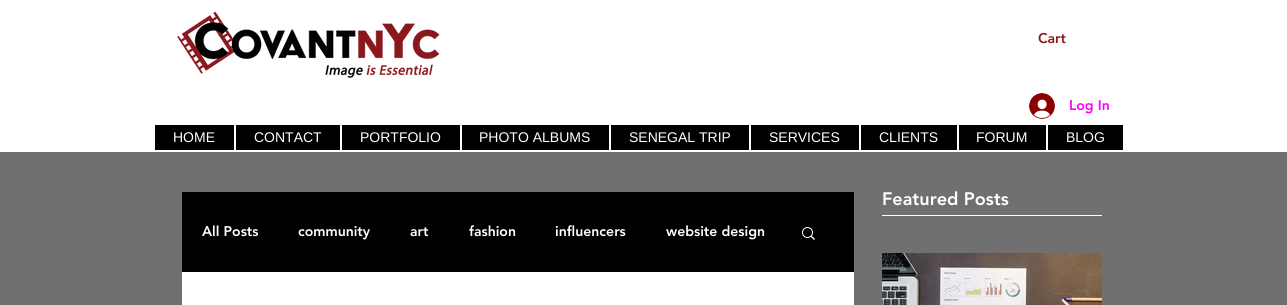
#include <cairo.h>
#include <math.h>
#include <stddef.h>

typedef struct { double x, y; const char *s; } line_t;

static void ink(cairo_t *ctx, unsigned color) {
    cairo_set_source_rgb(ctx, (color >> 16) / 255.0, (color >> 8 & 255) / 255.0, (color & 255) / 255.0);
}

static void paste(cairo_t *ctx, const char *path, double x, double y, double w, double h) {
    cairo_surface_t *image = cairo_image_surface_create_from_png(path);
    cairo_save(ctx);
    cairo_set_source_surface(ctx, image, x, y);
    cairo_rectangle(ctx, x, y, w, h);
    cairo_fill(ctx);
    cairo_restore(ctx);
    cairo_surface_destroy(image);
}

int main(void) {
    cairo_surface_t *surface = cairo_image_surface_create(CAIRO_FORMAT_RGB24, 1287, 305);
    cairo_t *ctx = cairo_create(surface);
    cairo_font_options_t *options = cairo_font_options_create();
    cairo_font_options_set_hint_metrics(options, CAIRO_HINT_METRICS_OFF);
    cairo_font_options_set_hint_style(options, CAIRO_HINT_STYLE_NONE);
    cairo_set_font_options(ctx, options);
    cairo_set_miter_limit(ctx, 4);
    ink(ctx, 0x707070);
    cairo_paint(ctx);
    ink(ctx, 0xFFFFFF);
    cairo_rectangle(ctx, 0, 0, 1287, 152);
    cairo_fill(ctx);
    paste(ctx, "media/1.png", 177, 11, 263, 67);
    cairo_select_font_face(ctx, "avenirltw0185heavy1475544 Black", CAIRO_FONT_SLANT_NORMAL, CAIRO_FONT_WEIGHT_NORMAL);
    cairo_set_font_size(ctx, 14);
    ink(ctx, 0x8B181C);
    cairo_move_to(ctx, 1038, 43);
    cairo_show_text(ctx, "Cart");
    paste(ctx, "media/2.png", 1029, 93, 26, 26);
    ink(ctx, 0xFF00FF);
    cairo_move_to(ctx, 1069, 110);
    cairo_show_text(ctx, "Log In");
    ink(ctx, 0x000000);
    cairo_rectangle(ctx, 155, 125, 79, 25);
    cairo_fill(ctx);
    cairo_select_font_face(ctx, "Liberation Sans", CAIRO_FONT_SLANT_NORMAL, CAIRO_FONT_WEIGHT_NORMAL);
    ink(ctx, 0xFFFFFF);
    cairo_move_to(ctx, 173, 142);
    cairo_show_text(ctx, "HOME");
    ink(ctx, 0x000000);
    cairo_rectangle(ctx, 236, 125, 104, 25);
    cairo_fill(ctx);
    ink(ctx, 0xFFFFFF);
    cairo_move_to(ctx, 254, 142);
    cairo_show_text(ctx, "CONTACT");
    ink(ctx, 0x000000);
    cairo_rectangle(ctx, 342, 125, 118, 25);
    cairo_fill(ctx);
    ink(ctx, 0xFFFFFF);
    cairo_move_to(ctx, 360, 142);
    cairo_show_text(ctx, "PORTFOLIO");
    ink(ctx, 0x000000);
    cairo_rectangle(ctx, 462, 125, 147, 25);
    cairo_fill(ctx);
    ink(ctx, 0xFFFFFF);
    cairo_move_to(ctx, 479, 142);
    cairo_show_text(ctx, "PHOTO ALBUMS");
    ink(ctx, 0x000000);
    cairo_rectangle(ctx, 611, 125, 138, 25);
    cairo_fill(ctx);
    ink(ctx, 0xFFFFFF);
    cairo_move_to(ctx, 629, 142);
    cairo_show_text(ctx, "SENEGAL TRIP");
    ink(ctx, 0x000000);
    cairo_rectangle(ctx, 751, 125, 108, 25);
    cairo_fill(ctx);
    ink(ctx, 0xFFFFFF);
    cairo_move_to(ctx, 769, 142);
    cairo_show_text(ctx, "SERVICES");
    ink(ctx, 0x000000);
    cairo_rectangle(ctx, 861, 125, 96, 25);
    cairo_fill(ctx);
    ink(ctx, 0xFFFFFF);
    cairo_move_to(ctx, 879, 142);
    cairo_show_text(ctx, "CLIENTS");
    ink(ctx, 0x000000);
    cairo_rectangle(ctx, 959, 125, 87, 25);
    cairo_fill(ctx);
    ink(ctx, 0xFFFFFF);
    cairo_move_to(ctx, 976, 142);
    cairo_show_text(ctx, "FORUM");
    ink(ctx, 0x000000);
    cairo_rectangle(ctx, 1048, 125, 75, 25);
    cairo_fill(ctx);
    ink(ctx, 0xFFFFFF);
    cairo_move_to(ctx, 1066, 142);
    cairo_show_text(ctx, "BLOG");
    cairo_select_font_face(ctx, "avenirltw0185heavy1475544 Black", CAIRO_FONT_SLANT_NORMAL, CAIRO_FONT_WEIGHT_NORMAL);
    cairo_set_font_size(ctx, 18);
    cairo_move_to(ctx, 882, 205);
    cairo_show_text(ctx, "Featured Posts");
    cairo_rectangle(ctx, 882, 215, 220, 1);
    cairo_fill(ctx);
    paste(ctx, "media/3.png", 882, 253, 220, 52);
    paste(ctx, "media/4.png", 1061, 299, 9, 6);
    cairo_rectangle(ctx, 182, 272, 672, 33);
    cairo_fill(ctx);
    ink(ctx, 0x000000);
    cairo_rectangle(ctx, 182, 192, 672, 80);
    cairo_fill(ctx);
    cairo_set_font_size(ctx, 14);
    ink(ctx, 0xFFFFFF);
    {
        static const line_t items[] = {
            {202, 236, "All Posts"},
            {298, 236, "community"},
            {410, 236, "art"},
            {469, 236, "fashion"},
            {555, 236, "influencers"},
            {666, 236, "website design"},
        };
        for (size_t i = 0; i < sizeof items / sizeof *items; i++) {
            cairo_move_to(ctx, items[i].x, items[i].y);
            cairo_show_text(ctx, items[i].s);
        }
    }
    paste(ctx, "media/5.png", 802, 227, 13, 13);
    cairo_surface_write_to_png(surface, "image.png");
    cairo_font_options_destroy(options);
    cairo_destroy(ctx);
    cairo_surface_destroy(surface);
    return 0;
}
